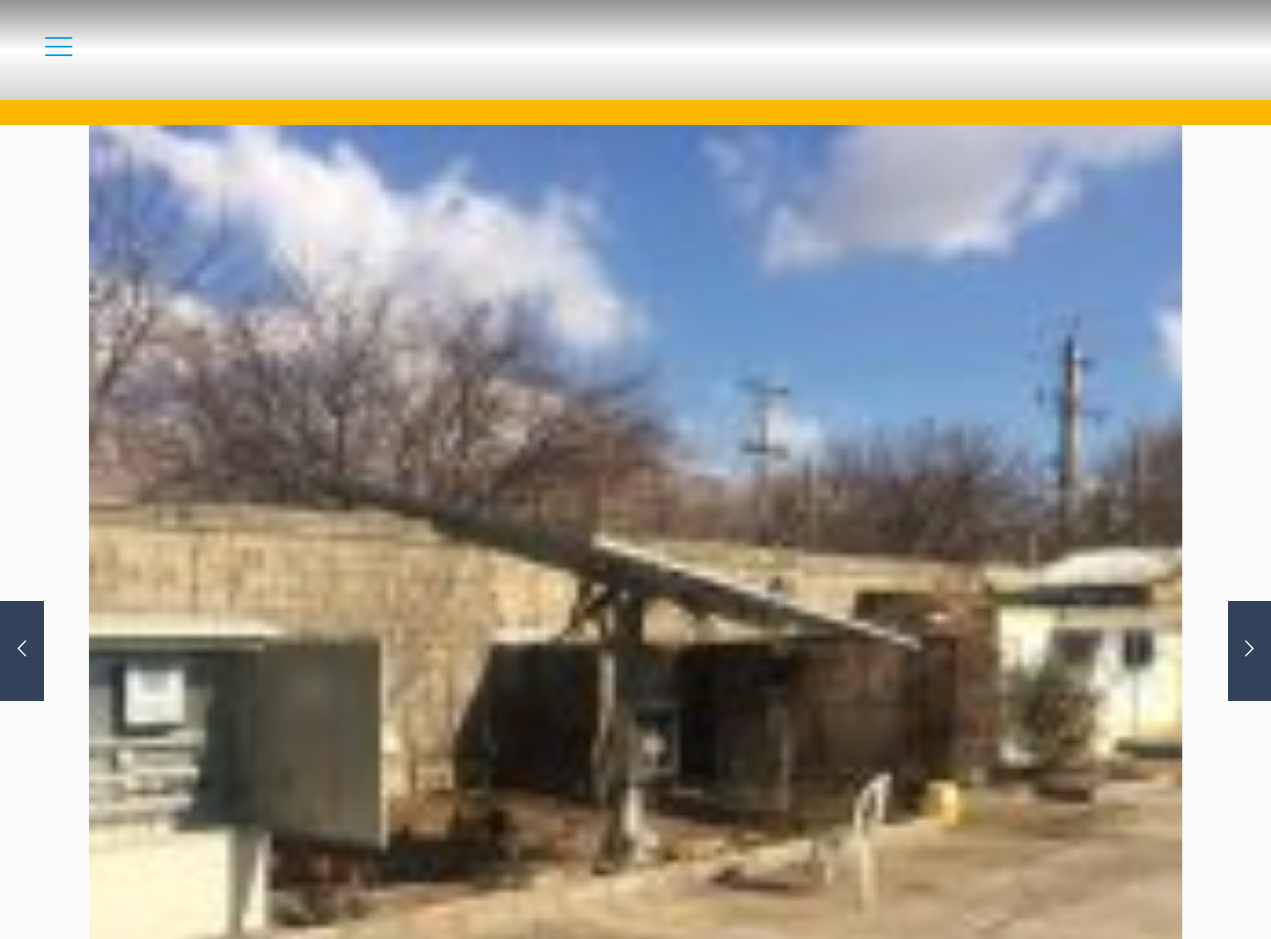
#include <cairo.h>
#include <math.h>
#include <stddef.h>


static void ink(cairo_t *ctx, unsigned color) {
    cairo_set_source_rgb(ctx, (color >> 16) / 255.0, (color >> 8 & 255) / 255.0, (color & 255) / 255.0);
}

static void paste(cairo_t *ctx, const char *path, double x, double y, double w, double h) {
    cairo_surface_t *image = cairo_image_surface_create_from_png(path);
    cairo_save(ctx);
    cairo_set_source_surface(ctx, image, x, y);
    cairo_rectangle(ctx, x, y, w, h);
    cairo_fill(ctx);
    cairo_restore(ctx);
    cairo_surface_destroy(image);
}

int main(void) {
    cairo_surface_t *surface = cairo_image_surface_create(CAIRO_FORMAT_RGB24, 1271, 939);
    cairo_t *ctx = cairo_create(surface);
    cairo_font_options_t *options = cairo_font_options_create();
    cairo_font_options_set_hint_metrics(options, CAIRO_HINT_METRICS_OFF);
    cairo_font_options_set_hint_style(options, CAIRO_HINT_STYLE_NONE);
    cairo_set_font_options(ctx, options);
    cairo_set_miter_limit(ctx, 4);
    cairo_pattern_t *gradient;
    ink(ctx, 0xFCFCFC);
    cairo_paint(ctx);
    gradient = cairo_pattern_create_linear(636, 0, 636, 100);
    cairo_pattern_add_color_stop_rgba(gradient, 0, 0.565, 0.565, 0.565, 1);
    cairo_pattern_add_color_stop_rgba(gradient, 0.5, 1, 1, 1, 1);
    cairo_pattern_add_color_stop_rgba(gradient, 1, 0.831, 0.831, 0.831, 1);
    cairo_set_source(ctx, gradient);
    cairo_pattern_destroy(gradient);
    cairo_rectangle(ctx, 0, 0, 1271, 100);
    cairo_fill(ctx);
    paste(ctx, "media/1.png", 45, 37, 28, 20);
    ink(ctx, 0xFCB900);
    cairo_rectangle(ctx, 0, 100, 1271, 25);
    cairo_fill(ctx);
    paste(ctx, "media/2.png", 88, 125, 1095, 814);
    ink(ctx, 0x34415A);
    cairo_rectangle(ctx, 0, 601, 44, 100);
    cairo_fill(ctx);
    paste(ctx, "media/3.png", 17, 640, 10, 17);
    cairo_rectangle(ctx, 1228, 601, 43, 100);
    cairo_fill(ctx);
    paste(ctx, "media/4.png", 1245, 640, 9, 17);
    cairo_surface_write_to_png(surface, "image.png");
    cairo_font_options_destroy(options);
    cairo_destroy(ctx);
    cairo_surface_destroy(surface);
    return 0;
}
